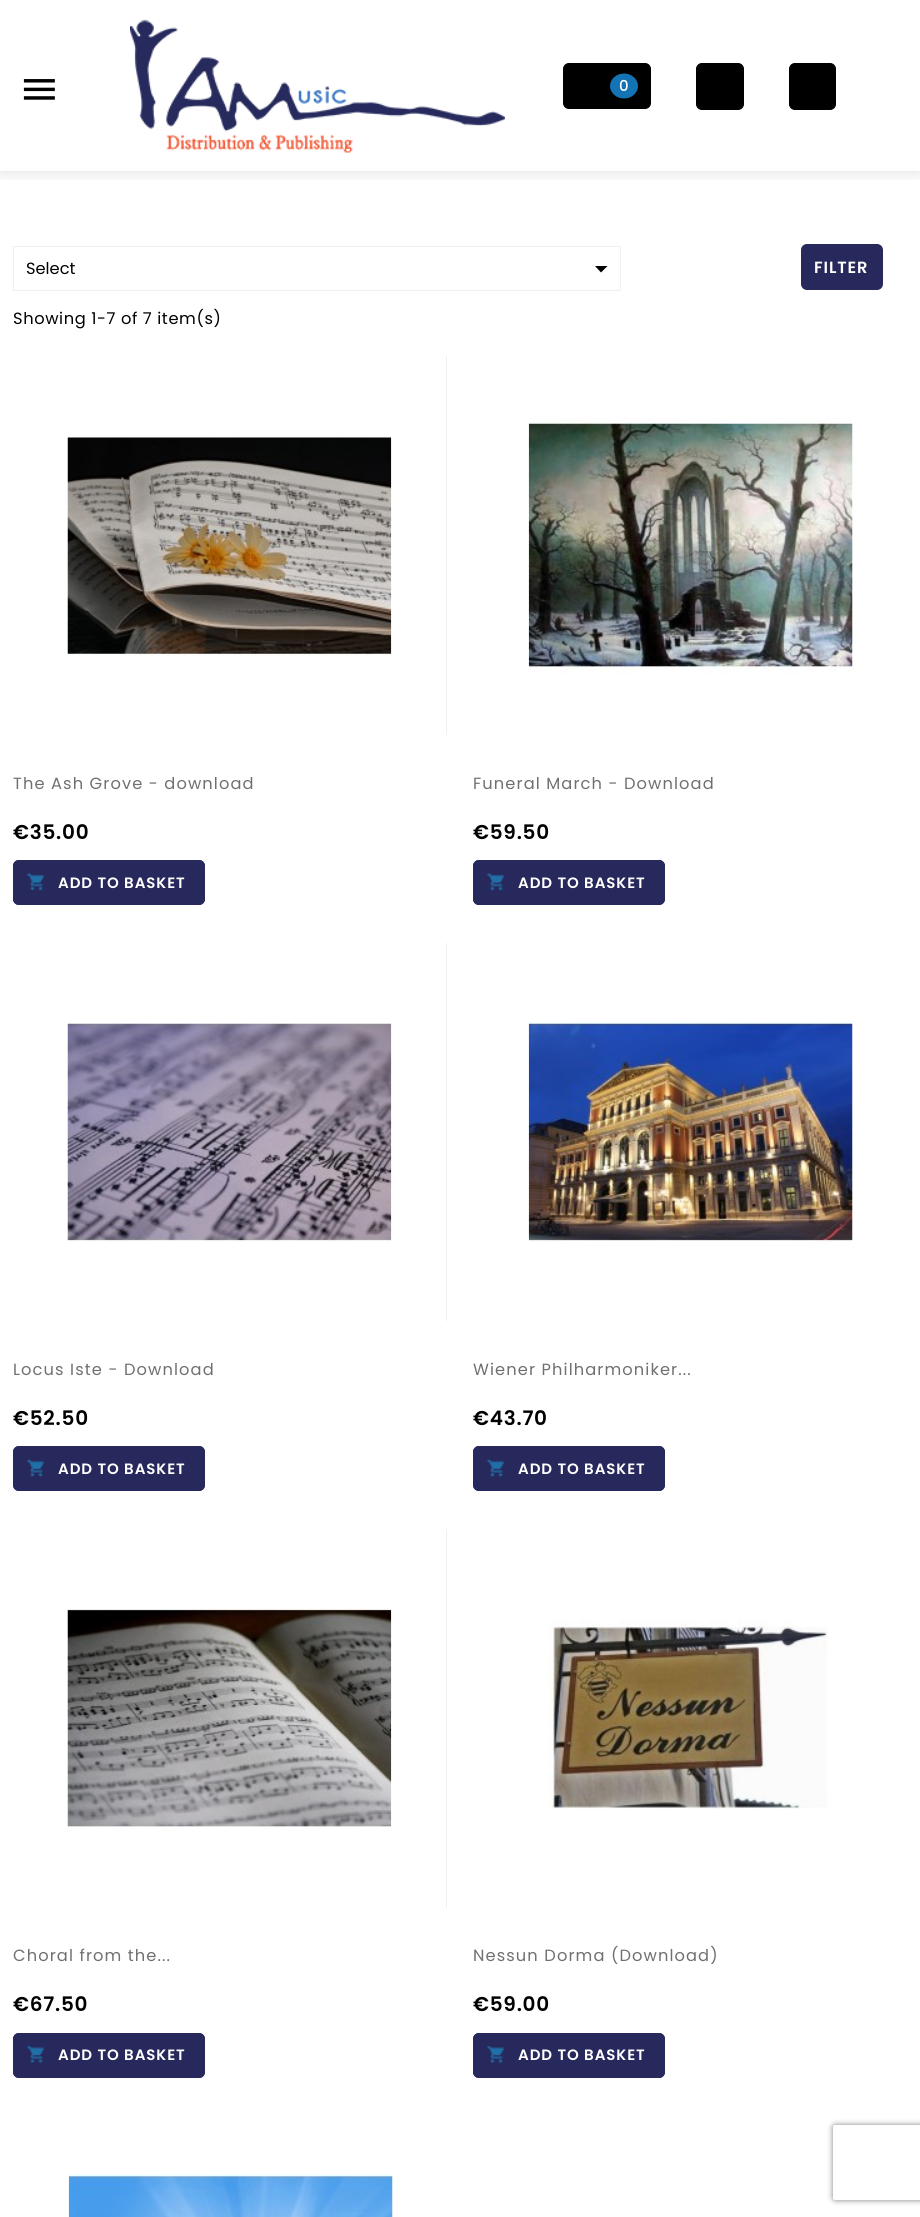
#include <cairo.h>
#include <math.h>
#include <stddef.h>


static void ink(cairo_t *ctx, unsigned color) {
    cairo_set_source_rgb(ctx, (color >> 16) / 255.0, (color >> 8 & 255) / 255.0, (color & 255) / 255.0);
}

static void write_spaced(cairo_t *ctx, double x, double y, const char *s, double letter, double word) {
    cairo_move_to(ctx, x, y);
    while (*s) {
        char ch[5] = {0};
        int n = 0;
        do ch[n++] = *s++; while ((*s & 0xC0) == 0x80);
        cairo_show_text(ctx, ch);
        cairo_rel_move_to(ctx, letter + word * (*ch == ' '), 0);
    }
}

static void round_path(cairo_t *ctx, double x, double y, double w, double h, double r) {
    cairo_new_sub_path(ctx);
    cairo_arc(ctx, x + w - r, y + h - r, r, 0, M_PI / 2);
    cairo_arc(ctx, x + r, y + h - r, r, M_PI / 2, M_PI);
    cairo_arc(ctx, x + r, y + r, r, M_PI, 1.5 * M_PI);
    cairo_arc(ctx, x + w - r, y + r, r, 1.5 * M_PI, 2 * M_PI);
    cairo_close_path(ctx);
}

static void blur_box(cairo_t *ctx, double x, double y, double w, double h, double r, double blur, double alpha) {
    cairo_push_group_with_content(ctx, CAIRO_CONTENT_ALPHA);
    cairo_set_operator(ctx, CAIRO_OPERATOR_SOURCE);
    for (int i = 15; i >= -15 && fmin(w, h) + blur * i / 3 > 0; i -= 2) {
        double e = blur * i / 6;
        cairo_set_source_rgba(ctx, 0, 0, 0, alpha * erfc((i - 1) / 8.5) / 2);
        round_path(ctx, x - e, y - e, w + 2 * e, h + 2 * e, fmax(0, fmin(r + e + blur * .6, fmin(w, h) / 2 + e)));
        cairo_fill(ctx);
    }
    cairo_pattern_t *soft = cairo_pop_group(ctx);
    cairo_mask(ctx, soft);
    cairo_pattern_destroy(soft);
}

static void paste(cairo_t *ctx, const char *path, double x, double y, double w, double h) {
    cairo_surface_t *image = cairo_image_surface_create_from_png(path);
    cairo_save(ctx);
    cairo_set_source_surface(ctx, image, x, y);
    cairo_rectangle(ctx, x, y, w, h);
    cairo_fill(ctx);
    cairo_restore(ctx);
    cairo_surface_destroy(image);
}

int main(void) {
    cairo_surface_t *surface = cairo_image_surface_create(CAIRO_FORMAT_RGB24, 920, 2217);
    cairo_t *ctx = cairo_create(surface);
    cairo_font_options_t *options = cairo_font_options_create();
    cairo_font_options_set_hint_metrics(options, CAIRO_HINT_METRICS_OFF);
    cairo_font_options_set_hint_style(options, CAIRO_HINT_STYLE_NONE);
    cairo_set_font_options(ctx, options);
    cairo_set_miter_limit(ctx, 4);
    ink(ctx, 0xFFFFFF);
    cairo_paint(ctx);
    cairo_save(ctx);
    cairo_rectangle(ctx, 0, 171, 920, 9);
    cairo_clip(ctx);
    ink(ctx, 0x000000);
    blur_box(ctx, 0, 3, 920, 171, 0, 7, 0.1);
    cairo_restore(ctx);
    paste(ctx, "media/1.png", 23, 79, 32, 21);
    paste(ctx, "media/2.png", 130, 19, 375, 134);
    ink(ctx, 0x000000);
    round_path(ctx, 563.5, 63.5, 87, 45, 5.5);
    cairo_fill_preserve(ctx);
    cairo_set_line_width(ctx, 1);
    cairo_stroke(ctx);
    ink(ctx, 0x1373B5);
    cairo_new_path(ctx);
    cairo_move_to(ctx, 624, 73.5);
    cairo_curve_to(ctx, 631.5, 73.5, 638, 79, 638, 86);
    cairo_curve_to(ctx, 638, 93, 631.5, 98.5, 624, 98.5);
    cairo_curve_to(ctx, 616.5, 98.5, 610, 93, 610, 86);
    cairo_curve_to(ctx, 610, 79, 616.5, 73.5, 624, 73.5);
    cairo_close_path(ctx);
    cairo_fill(ctx);
    cairo_select_font_face(ctx, "Poppins Medium", CAIRO_FONT_SLANT_NORMAL, CAIRO_FONT_WEIGHT_NORMAL);
    cairo_set_font_size(ctx, 15);
    ink(ctx, 0xFFFFFF);
    write_spaced(ctx, 619, 91, "0", 0.6, 0);
    ink(ctx, 0x000000);
    round_path(ctx, 696.5, 63.5, 47, 46, 5.5);
    cairo_fill_preserve(ctx);
    cairo_stroke(ctx);
    round_path(ctx, 789.5, 63.5, 46, 46, 5.5);
    cairo_fill_preserve(ctx);
    cairo_stroke(ctx);
    cairo_rectangle(ctx, 13.5, 246.5, 607, 44);
    ink(ctx, 0xF0F0F0);
    cairo_stroke(ctx);
    cairo_select_font_face(ctx, "Poppins", CAIRO_FONT_SLANT_NORMAL, CAIRO_FONT_WEIGHT_NORMAL);
    cairo_set_font_size(ctx, 16.25);
    ink(ctx, 0x000000);
    cairo_move_to(ctx, 26, 274);
    cairo_show_text(ctx, "Select");
    cairo_new_path(ctx);
    cairo_move_to(ctx, 595, 266);
    cairo_line_to(ctx, 607.5, 266);
    cairo_line_to(ctx, 601, 272.5);
    cairo_close_path(ctx);
    cairo_fill(ctx);
    ink(ctx, 0x27295C);
    round_path(ctx, 801, 244, 82, 46, 6);
    cairo_fill(ctx);
    cairo_select_font_face(ctx, "Poppins SemiBold", CAIRO_FONT_SLANT_NORMAL, CAIRO_FONT_WEIGHT_NORMAL);
    ink(ctx, 0xFFFFFF);
    write_spaced(ctx, 814, 273, "FILTER", 0.9, 0);
    cairo_select_font_face(ctx, "Poppins", CAIRO_FONT_SLANT_NORMAL, CAIRO_FONT_WEIGHT_NORMAL);
    ink(ctx, 0x000000);
    write_spaced(ctx, 13, 324, "Showing 1-7 of 7 item(s)", 0.6, 0);
    ink(ctx, 0xF0F0F0);
    cairo_rectangle(ctx, 446, 356, 1, 379);
    cairo_fill(ctx);
    paste(ctx, "media/3.png", 67, 437, 325, 219);
    ink(ctx, 0x707070);
    write_spaced(ctx, 13, 789, "The Ash Grove - download", 1.1, 0);
    cairo_select_font_face(ctx, "Poppins SemiBold", CAIRO_FONT_SLANT_NORMAL, CAIRO_FONT_WEIGHT_NORMAL);
    cairo_set_font_size(ctx, 20);
    ink(ctx, 0x000000);
    write_spaced(ctx, 13, 839, "€35.00", 0.75, 0);
    ink(ctx, 0x27295C);
    round_path(ctx, 13, 860, 192, 45, 6);
    cairo_fill(ctx);
    paste(ctx, "media/4.png", 27, 873, 17, 17);
    round_path(ctx, 13.5, 860.5, 191, 44, 5.5);
    cairo_stroke(ctx);
    cairo_set_font_size(ctx, 15);
    ink(ctx, 0xFFFFFF);
    write_spaced(ctx, 58, 888, "ADD TO BASKET", 0.9, 0);
    paste(ctx, "media/5.png", 528, 417, 325, 259);
    cairo_select_font_face(ctx, "Poppins", CAIRO_FONT_SLANT_NORMAL, CAIRO_FONT_WEIGHT_NORMAL);
    cairo_set_font_size(ctx, 16.25);
    ink(ctx, 0x707070);
    write_spaced(ctx, 473, 789, "Funeral March - Download", 1.1, 0);
    cairo_select_font_face(ctx, "Poppins SemiBold", CAIRO_FONT_SLANT_NORMAL, CAIRO_FONT_WEIGHT_NORMAL);
    cairo_set_font_size(ctx, 20);
    ink(ctx, 0x000000);
    write_spaced(ctx, 473, 839, "€59.50", 0.75, 0);
    ink(ctx, 0x27295C);
    round_path(ctx, 473, 860, 192, 45, 6);
    cairo_fill(ctx);
    paste(ctx, "media/4.png", 487, 873, 17, 17);
    round_path(ctx, 473.5, 860.5, 191, 44, 5.5);
    cairo_stroke(ctx);
    cairo_set_font_size(ctx, 15);
    ink(ctx, 0xFFFFFF);
    write_spaced(ctx, 518, 888, "ADD TO BASKET", 0.9, 0);
    ink(ctx, 0xF0F0F0);
    cairo_rectangle(ctx, 446, 943, 1, 378);
    cairo_fill(ctx);
    paste(ctx, "media/6.png", 67, 1023, 325, 219);
    cairo_select_font_face(ctx, "Poppins", CAIRO_FONT_SLANT_NORMAL, CAIRO_FONT_WEIGHT_NORMAL);
    cairo_set_font_size(ctx, 16.25);
    ink(ctx, 0x707070);
    write_spaced(ctx, 13, 1375, "Locus Iste - Download", 1.1, 0);
    cairo_select_font_face(ctx, "Poppins SemiBold", CAIRO_FONT_SLANT_NORMAL, CAIRO_FONT_WEIGHT_NORMAL);
    cairo_set_font_size(ctx, 20);
    ink(ctx, 0x000000);
    write_spaced(ctx, 13, 1425, "€52.50", 0.75, 0);
    ink(ctx, 0x27295C);
    round_path(ctx, 13, 1446, 192, 45, 6);
    cairo_fill(ctx);
    paste(ctx, "media/7.png", 27, 1459, 17, 18);
    round_path(ctx, 13.5, 1446.5, 191, 44, 5.5);
    cairo_stroke(ctx);
    cairo_set_font_size(ctx, 15);
    ink(ctx, 0xFFFFFF);
    write_spaced(ctx, 58, 1474, "ADD TO BASKET", 0.9, 0);
    paste(ctx, "media/8.png", 528, 1021, 325, 221);
    cairo_select_font_face(ctx, "Poppins", CAIRO_FONT_SLANT_NORMAL, CAIRO_FONT_WEIGHT_NORMAL);
    cairo_set_font_size(ctx, 16.25);
    ink(ctx, 0x707070);
    write_spaced(ctx, 473, 1375, "Wiener Philharmoniker...", 1.1, 0);
    cairo_select_font_face(ctx, "Poppins SemiBold", CAIRO_FONT_SLANT_NORMAL, CAIRO_FONT_WEIGHT_NORMAL);
    cairo_set_font_size(ctx, 20);
    ink(ctx, 0x000000);
    write_spaced(ctx, 473, 1425, "€43.70", 0.75, 0);
    ink(ctx, 0x27295C);
    round_path(ctx, 473, 1446, 192, 45, 6);
    cairo_fill(ctx);
    paste(ctx, "media/7.png", 487, 1459, 17, 18);
    round_path(ctx, 473.5, 1446.5, 191, 44, 5.5);
    cairo_stroke(ctx);
    cairo_set_font_size(ctx, 15);
    ink(ctx, 0xFFFFFF);
    write_spaced(ctx, 518, 1474, "ADD TO BASKET", 0.9, 0);
    ink(ctx, 0xF0F0F0);
    cairo_rectangle(ctx, 446, 1529, 1, 379);
    cairo_fill(ctx);
    paste(ctx, "media/9.png", 67, 1608, 325, 219);
    cairo_select_font_face(ctx, "Poppins", CAIRO_FONT_SLANT_NORMAL, CAIRO_FONT_WEIGHT_NORMAL);
    cairo_set_font_size(ctx, 16.25);
    ink(ctx, 0x707070);
    write_spaced(ctx, 13, 1961, "Choral from the...", 1.1, 0);
    cairo_select_font_face(ctx, "Poppins SemiBold", CAIRO_FONT_SLANT_NORMAL, CAIRO_FONT_WEIGHT_NORMAL);
    cairo_set_font_size(ctx, 20);
    ink(ctx, 0x000000);
    write_spaced(ctx, 13, 2011, "€67.50", 0.75, 0);
    ink(ctx, 0x27295C);
    round_path(ctx, 13, 2033, 192, 45, 6);
    cairo_fill(ctx);
    paste(ctx, "media/10.png", 27, 2046, 17, 17);
    round_path(ctx, 13.5, 2033.5, 191, 44, 5.5);
    cairo_stroke(ctx);
    cairo_set_font_size(ctx, 15);
    ink(ctx, 0xFFFFFF);
    write_spaced(ctx, 58, 2060, "ADD TO BASKET", 0.9, 0);
    paste(ctx, "media/11.png", 546, 1620, 282, 189);
    cairo_select_font_face(ctx, "Poppins", CAIRO_FONT_SLANT_NORMAL, CAIRO_FONT_WEIGHT_NORMAL);
    cairo_set_font_size(ctx, 16.25);
    ink(ctx, 0x707070);
    write_spaced(ctx, 473, 1961, "Nessun Dorma (Download)", 1.1, 0);
    cairo_select_font_face(ctx, "Poppins SemiBold", CAIRO_FONT_SLANT_NORMAL, CAIRO_FONT_WEIGHT_NORMAL);
    cairo_set_font_size(ctx, 20);
    ink(ctx, 0x000000);
    write_spaced(ctx, 473, 2011, "€59.00", 0.75, 0);
    ink(ctx, 0x27295C);
    round_path(ctx, 473, 2033, 192, 45, 6);
    cairo_fill(ctx);
    paste(ctx, "media/10.png", 487, 2046, 17, 17);
    round_path(ctx, 473.5, 2033.5, 191, 44, 5.5);
    cairo_stroke(ctx);
    cairo_set_font_size(ctx, 15);
    ink(ctx, 0xFFFFFF);
    write_spaced(ctx, 518, 2060, "ADD TO BASKET", 0.9, 0);
    paste(ctx, "media/12.png", 68, 2174, 325, 43);
    cairo_save(ctx);
    cairo_set_fill_rule(ctx, CAIRO_FILL_RULE_EVEN_ODD);
    cairo_new_path(ctx);
    cairo_move_to(ctx, 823, 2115);
    cairo_line_to(ctx, 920, 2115);
    cairo_line_to(ctx, 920, 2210);
    cairo_line_to(ctx, 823, 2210);
    cairo_close_path(ctx);
    cairo_move_to(ctx, 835.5, 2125);
    cairo_line_to(ctx, 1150.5, 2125);
    cairo_curve_to(ctx, 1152, 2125, 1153, 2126, 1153, 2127.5);
    cairo_line_to(ctx, 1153, 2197.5);
    cairo_curve_to(ctx, 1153, 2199, 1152, 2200, 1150.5, 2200);
    cairo_line_to(ctx, 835.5, 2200);
    cairo_curve_to(ctx, 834, 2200, 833, 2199, 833, 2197.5);
    cairo_line_to(ctx, 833, 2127.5);
    cairo_curve_to(ctx, 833, 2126, 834, 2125, 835.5, 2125);
    cairo_close_path(ctx);
    cairo_clip(ctx);
    ink(ctx, 0x808080);
    blur_box(ctx, 833, 2125, 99, 75, 2.5, 3, 1);
    cairo_restore(ctx);
    cairo_surface_write_to_png(surface, "image.png");
    cairo_font_options_destroy(options);
    cairo_destroy(ctx);
    cairo_surface_destroy(surface);
    return 0;
}
